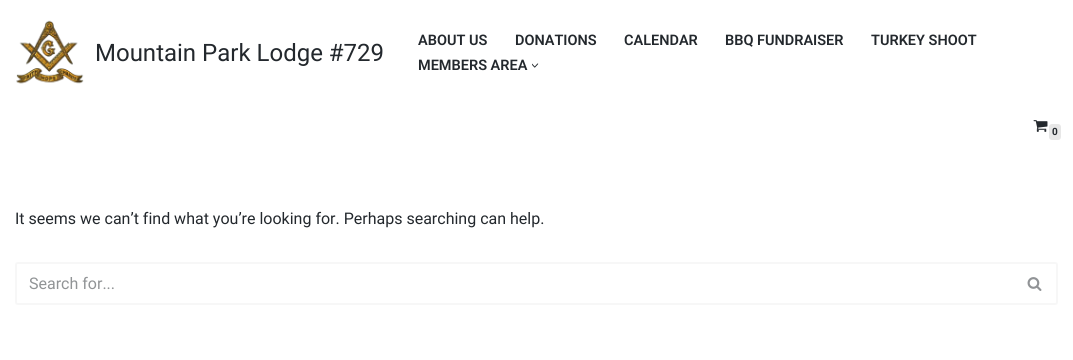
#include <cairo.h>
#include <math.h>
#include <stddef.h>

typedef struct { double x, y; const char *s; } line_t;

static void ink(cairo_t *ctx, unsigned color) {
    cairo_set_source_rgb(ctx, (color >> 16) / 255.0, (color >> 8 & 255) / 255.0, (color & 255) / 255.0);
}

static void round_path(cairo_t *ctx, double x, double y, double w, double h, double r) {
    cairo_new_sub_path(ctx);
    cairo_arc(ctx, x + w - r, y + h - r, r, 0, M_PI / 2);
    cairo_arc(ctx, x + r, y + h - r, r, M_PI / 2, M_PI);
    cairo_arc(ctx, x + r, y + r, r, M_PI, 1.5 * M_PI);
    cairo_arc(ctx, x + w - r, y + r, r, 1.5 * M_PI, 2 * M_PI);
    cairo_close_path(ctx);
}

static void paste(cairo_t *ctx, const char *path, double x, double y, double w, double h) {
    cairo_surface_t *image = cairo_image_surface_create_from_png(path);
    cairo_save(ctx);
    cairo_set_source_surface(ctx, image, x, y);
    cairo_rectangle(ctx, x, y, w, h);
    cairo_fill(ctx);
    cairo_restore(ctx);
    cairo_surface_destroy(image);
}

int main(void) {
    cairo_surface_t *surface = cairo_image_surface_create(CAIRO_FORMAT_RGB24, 1073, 360);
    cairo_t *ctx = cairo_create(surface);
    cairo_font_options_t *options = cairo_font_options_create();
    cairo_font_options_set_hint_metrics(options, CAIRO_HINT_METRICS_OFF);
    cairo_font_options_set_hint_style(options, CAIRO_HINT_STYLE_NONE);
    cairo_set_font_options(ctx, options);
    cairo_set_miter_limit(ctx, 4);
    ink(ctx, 0xFFFFFF);
    cairo_paint(ctx);
    paste(ctx, "media/1.png", 16, 20, 68, 64);
    cairo_select_font_face(ctx, "Roboto", CAIRO_FONT_SLANT_NORMAL, CAIRO_FONT_WEIGHT_NORMAL);
    cairo_set_font_size(ctx, 24);
    ink(ctx, 0x23282D);
    cairo_move_to(ctx, 95, 61);
    cairo_show_text(ctx, "Mountain Park Lodge #729");
    cairo_select_font_face(ctx, "Roboto SemiBold", CAIRO_FONT_SLANT_NORMAL, CAIRO_FONT_WEIGHT_NORMAL);
    cairo_set_font_size(ctx, 14.5);
    {
        static const line_t items[] = {
            {418, 45, "ABOUT US"},
            {515, 45, "DONATIONS"},
            {624, 45, "CALENDAR"},
            {725, 45, "BBQ FUNDRAISER"},
            {871, 45, "TURKEY SHOOT"},
            {418, 70, "MEMBERS AREA"},
        };
        for (size_t i = 0; i < sizeof items / sizeof *items; i++) {
            cairo_move_to(ctx, items[i].x, items[i].y);
            cairo_show_text(ctx, items[i].s);
        }
    }
    paste(ctx, "media/2.png", 532, 63, 7, 5);
    paste(ctx, "media/3.png", 1033, 120, 15, 12);
    ink(ctx, 0xE7E7E7);
    round_path(ctx, 1049, 124, 12, 16, 3);
    cairo_fill(ctx);
    cairo_select_font_face(ctx, "Roboto", CAIRO_FONT_SLANT_NORMAL, CAIRO_FONT_WEIGHT_BOLD);
    cairo_set_font_size(ctx, 10);
    ink(ctx, 0x23282D);
    cairo_move_to(ctx, 1052, 135);
    cairo_show_text(ctx, "0");
    cairo_select_font_face(ctx, "Roboto", CAIRO_FONT_SLANT_NORMAL, CAIRO_FONT_WEIGHT_NORMAL);
    cairo_set_font_size(ctx, 16);
    cairo_move_to(ctx, 15, 224);
    cairo_show_text(ctx, "It seems we can’t find what you’re looking for. Perhaps searching can help.");
    ink(ctx, 0xF7F7F7);
    cairo_set_fill_rule(ctx, CAIRO_FILL_RULE_EVEN_ODD);
    cairo_new_path(ctx);
    cairo_move_to(ctx, 18, 262);
    cairo_line_to(ctx, 1013, 262);
    cairo_line_to(ctx, 1013, 305);
    cairo_line_to(ctx, 18, 305);
    cairo_curve_to(ctx, 16, 305, 15, 304, 15, 302);
    cairo_line_to(ctx, 15, 265);
    cairo_curve_to(ctx, 15, 263, 16, 262, 18, 262);
    cairo_close_path(ctx);
    cairo_move_to(ctx, 18, 264);
    cairo_line_to(ctx, 1013, 264);
    cairo_line_to(ctx, 1013, 303);
    cairo_line_to(ctx, 18, 303);
    cairo_curve_to(ctx, 17, 303, 17, 303, 17, 302);
    cairo_line_to(ctx, 17, 265);
    cairo_curve_to(ctx, 17, 264, 17, 264, 18, 264);
    cairo_close_path(ctx);
    cairo_fill(ctx);
    ink(ctx, 0x919496);
    cairo_move_to(ctx, 29, 289);
    cairo_show_text(ctx, "Search for...");
    ink(ctx, 0xF7F7F7);
    cairo_new_path(ctx);
    cairo_move_to(ctx, 1013, 262);
    cairo_line_to(ctx, 1055, 262);
    cairo_curve_to(ctx, 1057, 262, 1058, 263, 1058, 265);
    cairo_line_to(ctx, 1058, 302);
    cairo_curve_to(ctx, 1058, 304, 1057, 305, 1055, 305);
    cairo_line_to(ctx, 1013, 305);
    cairo_close_path(ctx);
    cairo_move_to(ctx, 1013, 264);
    cairo_line_to(ctx, 1055, 264);
    cairo_curve_to(ctx, 1056, 264, 1056, 264, 1056, 265);
    cairo_line_to(ctx, 1056, 302);
    cairo_curve_to(ctx, 1056, 303, 1056, 303, 1055, 303);
    cairo_line_to(ctx, 1013, 303);
    cairo_close_path(ctx);
    cairo_fill(ctx);
    paste(ctx, "media/4.png", 1027, 277, 15, 14);
    cairo_surface_write_to_png(surface, "image.png");
    cairo_font_options_destroy(options);
    cairo_destroy(ctx);
    cairo_surface_destroy(surface);
    return 0;
}
